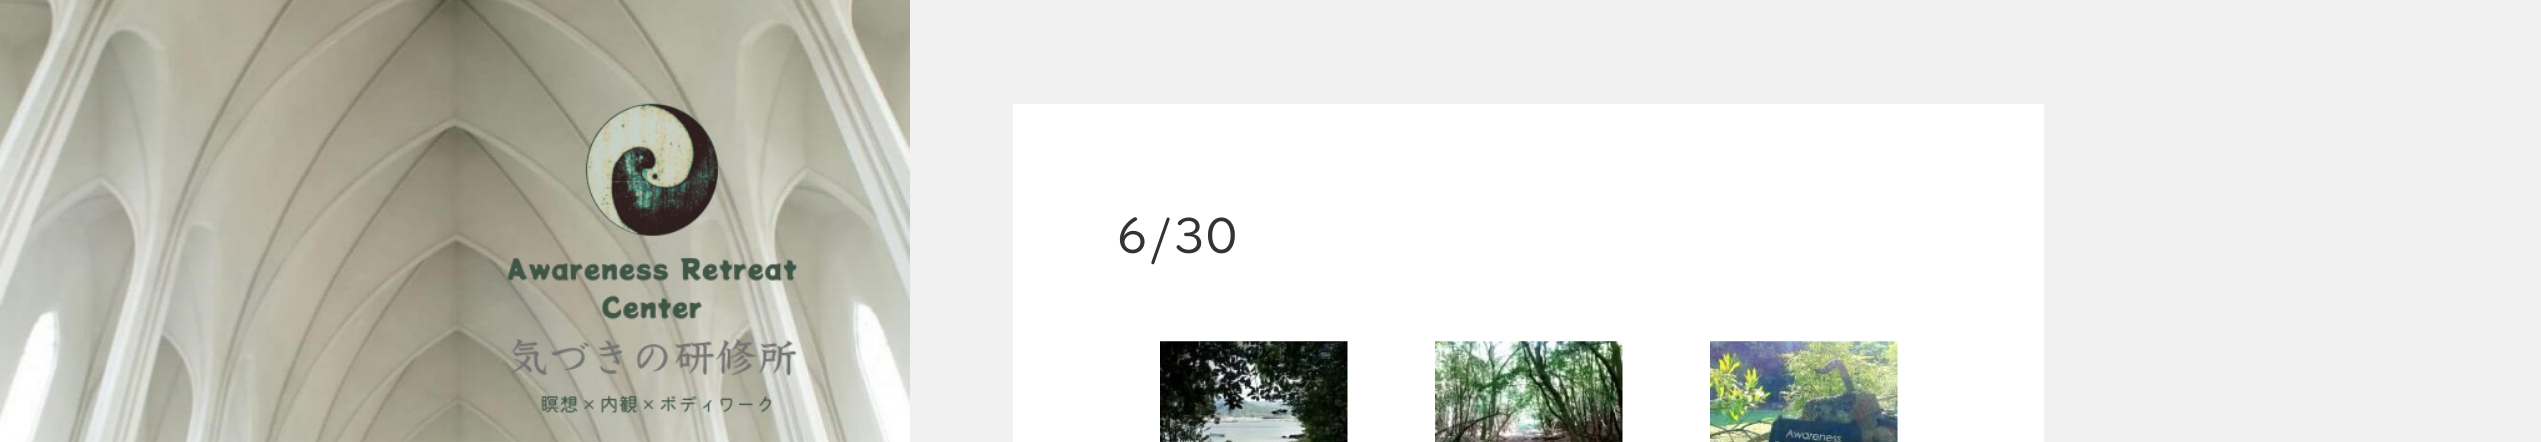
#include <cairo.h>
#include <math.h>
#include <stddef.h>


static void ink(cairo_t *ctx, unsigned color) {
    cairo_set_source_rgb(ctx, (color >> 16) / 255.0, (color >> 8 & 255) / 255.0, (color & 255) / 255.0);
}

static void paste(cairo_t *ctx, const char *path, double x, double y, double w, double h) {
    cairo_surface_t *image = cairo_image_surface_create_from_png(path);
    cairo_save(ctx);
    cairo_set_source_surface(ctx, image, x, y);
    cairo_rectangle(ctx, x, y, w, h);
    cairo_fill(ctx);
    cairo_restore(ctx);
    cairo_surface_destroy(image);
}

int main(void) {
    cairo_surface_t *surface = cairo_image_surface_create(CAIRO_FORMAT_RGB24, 2541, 442);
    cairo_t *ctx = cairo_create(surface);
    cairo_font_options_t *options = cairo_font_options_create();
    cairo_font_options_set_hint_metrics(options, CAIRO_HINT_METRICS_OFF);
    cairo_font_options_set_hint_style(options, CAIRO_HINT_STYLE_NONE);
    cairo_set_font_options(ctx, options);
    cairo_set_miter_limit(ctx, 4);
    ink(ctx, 0xF1F1F1);
    cairo_paint(ctx);
    paste(ctx, "media/1.png", 0, 0, 910, 442);
    paste(ctx, "media/2.png", 507, 103, 290, 310);
    ink(ctx, 0xFFFFFF);
    cairo_rectangle(ctx, 1013, 104, 1031, 338);
    cairo_fill(ctx);
    cairo_select_font_face(ctx, "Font", CAIRO_FONT_SLANT_NORMAL, CAIRO_FONT_WEIGHT_NORMAL);
    cairo_set_font_size(ctx, 49);
    ink(ctx, 0x333333);
    cairo_move_to(ctx, 1116, 254);
    cairo_show_text(ctx, "6/30");
    paste(ctx, "media/3.png", 1160, 341, 188, 101);
    paste(ctx, "media/4.png", 1435, 341, 188, 101);
    paste(ctx, "media/5.png", 1710, 341, 188, 101);
    cairo_surface_write_to_png(surface, "image.png");
    cairo_font_options_destroy(options);
    cairo_destroy(ctx);
    cairo_surface_destroy(surface);
    return 0;
}
